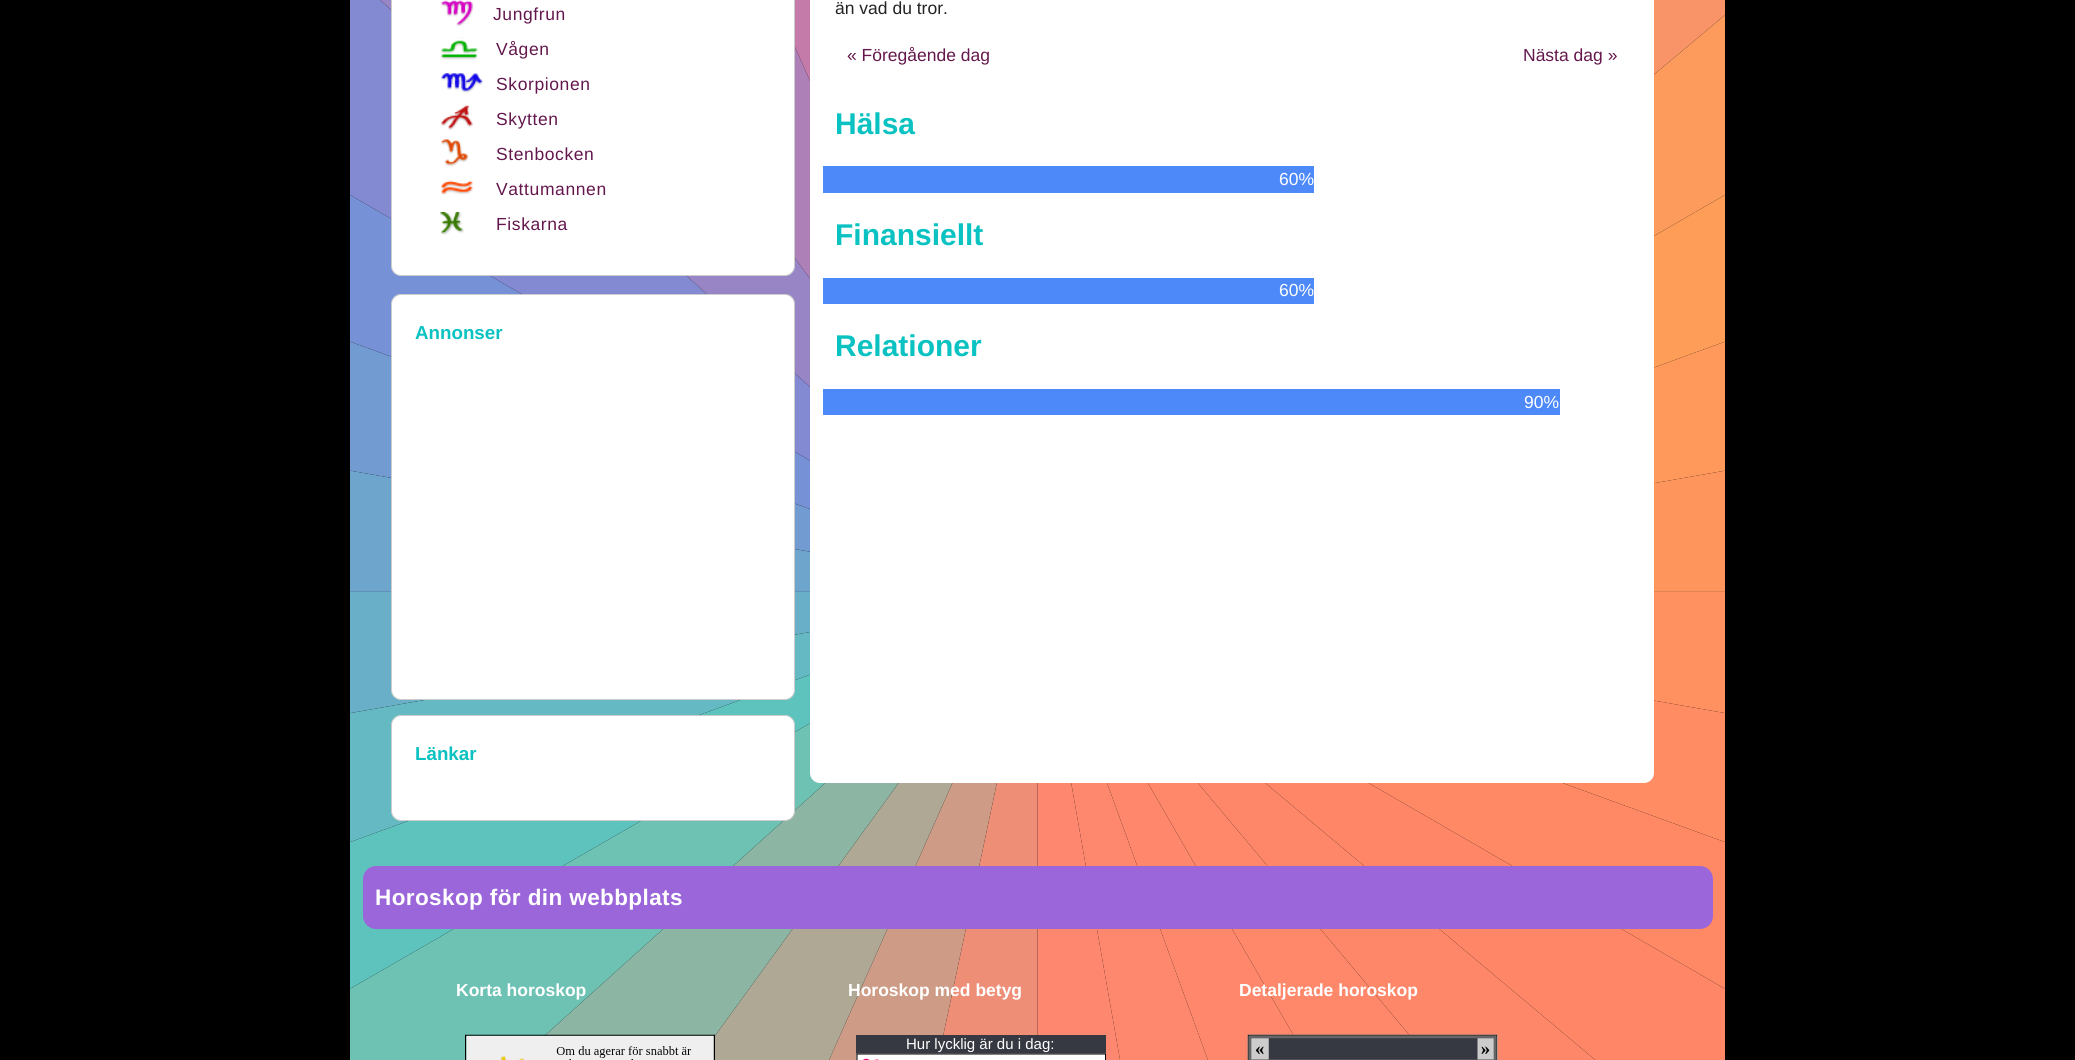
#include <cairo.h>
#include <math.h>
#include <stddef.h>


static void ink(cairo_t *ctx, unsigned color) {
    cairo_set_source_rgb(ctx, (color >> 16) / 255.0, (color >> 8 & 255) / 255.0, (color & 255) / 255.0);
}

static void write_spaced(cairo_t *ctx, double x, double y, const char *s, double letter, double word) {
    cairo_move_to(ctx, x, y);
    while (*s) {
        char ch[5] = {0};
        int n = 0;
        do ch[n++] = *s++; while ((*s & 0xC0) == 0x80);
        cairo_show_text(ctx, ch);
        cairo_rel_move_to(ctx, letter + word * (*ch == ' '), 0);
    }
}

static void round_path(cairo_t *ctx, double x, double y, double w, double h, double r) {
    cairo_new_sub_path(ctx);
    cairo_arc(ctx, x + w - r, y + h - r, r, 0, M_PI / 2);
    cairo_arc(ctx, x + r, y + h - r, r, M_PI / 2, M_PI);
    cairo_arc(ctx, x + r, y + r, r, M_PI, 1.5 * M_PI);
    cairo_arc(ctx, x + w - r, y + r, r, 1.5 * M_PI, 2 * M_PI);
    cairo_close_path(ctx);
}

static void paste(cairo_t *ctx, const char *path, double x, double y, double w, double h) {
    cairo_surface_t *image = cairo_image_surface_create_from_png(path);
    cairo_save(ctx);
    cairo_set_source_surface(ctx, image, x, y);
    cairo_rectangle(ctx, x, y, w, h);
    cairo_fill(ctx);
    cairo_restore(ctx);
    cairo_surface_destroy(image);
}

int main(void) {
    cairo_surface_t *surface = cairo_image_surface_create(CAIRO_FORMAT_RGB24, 2075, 1060);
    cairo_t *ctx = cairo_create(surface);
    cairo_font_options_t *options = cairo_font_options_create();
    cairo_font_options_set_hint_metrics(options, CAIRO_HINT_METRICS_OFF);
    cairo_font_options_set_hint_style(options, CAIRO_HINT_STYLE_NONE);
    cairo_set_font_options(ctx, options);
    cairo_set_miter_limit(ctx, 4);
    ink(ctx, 0x000000);
    cairo_paint(ctx);
    paste(ctx, "media/1.png", 350, 0, 1375, 1060);
    ink(ctx, 0xFFFFFF);
    round_path(ctx, 391.5, -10.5, 403, 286, 9.5);
    cairo_fill_preserve(ctx);
    ink(ctx, 0xCCCCCC);
    cairo_set_line_width(ctx, 1);
    cairo_stroke(ctx);
    paste(ctx, "media/2.png", 441, 0, 33, 27);
    cairo_select_font_face(ctx, "Liberation Sans", CAIRO_FONT_SLANT_NORMAL, CAIRO_FONT_WEIGHT_NORMAL);
    cairo_set_font_size(ctx, 17.5);
    ink(ctx, 0x64174D);
    write_spaced(ctx, 493, 20, "Jungfrun", 0.6, 0);
    paste(ctx, "media/3.png", 441, 37, 37, 23);
    write_spaced(ctx, 496, 55, "Vågen", 0.6, 0);
    paste(ctx, "media/4.png", 441, 73, 42, 20);
    write_spaced(ctx, 496, 90, "Skorpionen", 0.6, 0);
    paste(ctx, "media/5.png", 441, 105, 32, 25);
    write_spaced(ctx, 496, 125, "Skytten", 0.6, 0);
    paste(ctx, "media/6.png", 441, 139, 28, 28);
    write_spaced(ctx, 496, 160, "Stenbocken", 0.6, 0);
    paste(ctx, "media/7.png", 441, 180, 32, 15);
    write_spaced(ctx, 496, 195, "Vattumannen", 0.6, 0);
    paste(ctx, "media/8.png", 440, 212, 24, 23);
    write_spaced(ctx, 496, 230, "Fiskarna", 0.6, 0);
    ink(ctx, 0xFFFFFF);
    round_path(ctx, 391.5, 294.5, 403, 405, 9.5);
    cairo_fill_preserve(ctx);
    ink(ctx, 0xCCCCCC);
    cairo_stroke(ctx);
    cairo_select_font_face(ctx, "Liberation Sans", CAIRO_FONT_SLANT_NORMAL, CAIRO_FONT_WEIGHT_BOLD);
    cairo_set_font_size(ctx, 18.75);
    ink(ctx, 0x09C2C1);
    cairo_move_to(ctx, 415, 339);
    cairo_show_text(ctx, "Annonser");
    ink(ctx, 0xFFFFFF);
    round_path(ctx, 391.5, 715.5, 403, 105, 9.5);
    cairo_fill_preserve(ctx);
    ink(ctx, 0xCCCCCC);
    cairo_stroke(ctx);
    ink(ctx, 0x09C2C1);
    cairo_move_to(ctx, 415, 760);
    cairo_show_text(ctx, "Länkar");
    ink(ctx, 0xFFFFFF);
    round_path(ctx, 810, -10, 844, 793, 10);
    cairo_fill(ctx);
    cairo_select_font_face(ctx, "Liberation Sans", CAIRO_FONT_SLANT_NORMAL, CAIRO_FONT_WEIGHT_NORMAL);
    cairo_set_font_size(ctx, 17.5);
    ink(ctx, 0x232323);
    cairo_move_to(ctx, 835, 14);
    cairo_show_text(ctx, "än vad du tror.");
    ink(ctx, 0x64174D);
    cairo_move_to(ctx, 847, 61);
    cairo_show_text(ctx, "« Föregående dag");
    cairo_move_to(ctx, 1523, 61);
    cairo_show_text(ctx, "Nästa dag »");
    cairo_select_font_face(ctx, "Liberation Sans", CAIRO_FONT_SLANT_NORMAL, CAIRO_FONT_WEIGHT_BOLD);
    cairo_set_font_size(ctx, 30);
    ink(ctx, 0x09C2C1);
    cairo_move_to(ctx, 835, 134);
    cairo_show_text(ctx, "Hälsa");
    ink(ctx, 0x4D89F9);
    cairo_rectangle(ctx, 823, 166, 491, 27);
    cairo_fill(ctx);
    cairo_select_font_face(ctx, "Liberation Sans", CAIRO_FONT_SLANT_NORMAL, CAIRO_FONT_WEIGHT_NORMAL);
    cairo_set_font_size(ctx, 17.5);
    ink(ctx, 0xFFFFFF);
    cairo_move_to(ctx, 1279, 185);
    cairo_show_text(ctx, "60%");
    cairo_select_font_face(ctx, "Liberation Sans", CAIRO_FONT_SLANT_NORMAL, CAIRO_FONT_WEIGHT_BOLD);
    cairo_set_font_size(ctx, 30);
    ink(ctx, 0x09C2C1);
    cairo_move_to(ctx, 835, 245);
    cairo_show_text(ctx, "Finansiellt");
    ink(ctx, 0x4D89F9);
    cairo_rectangle(ctx, 823, 278, 491, 26);
    cairo_fill(ctx);
    cairo_select_font_face(ctx, "Liberation Sans", CAIRO_FONT_SLANT_NORMAL, CAIRO_FONT_WEIGHT_NORMAL);
    cairo_set_font_size(ctx, 17.5);
    ink(ctx, 0xFFFFFF);
    cairo_move_to(ctx, 1279, 296);
    cairo_show_text(ctx, "60%");
    cairo_select_font_face(ctx, "Liberation Sans", CAIRO_FONT_SLANT_NORMAL, CAIRO_FONT_WEIGHT_BOLD);
    cairo_set_font_size(ctx, 30);
    ink(ctx, 0x09C2C1);
    cairo_move_to(ctx, 835, 356);
    cairo_show_text(ctx, "Relationer");
    ink(ctx, 0x4D89F9);
    cairo_rectangle(ctx, 823, 389, 737, 26);
    cairo_fill(ctx);
    cairo_select_font_face(ctx, "Liberation Sans", CAIRO_FONT_SLANT_NORMAL, CAIRO_FONT_WEIGHT_NORMAL);
    cairo_set_font_size(ctx, 17.5);
    ink(ctx, 0xFFFFFF);
    cairo_move_to(ctx, 1524, 408);
    cairo_show_text(ctx, "90%");
    ink(ctx, 0x9B66DA);
    round_path(ctx, 363, 866, 1350, 63, 13);
    cairo_fill(ctx);
    cairo_select_font_face(ctx, "Liberation Sans", CAIRO_FONT_SLANT_NORMAL, CAIRO_FONT_WEIGHT_BOLD);
    cairo_set_font_size(ctx, 22.5);
    ink(ctx, 0xFFFFFF);
    write_spaced(ctx, 375, 905, "Horoskop för din webbplats", 0.4, 0);
    cairo_set_font_size(ctx, 17.5);
    cairo_move_to(ctx, 456, 996);
    cairo_show_text(ctx, "Korta horoskop");
    paste(ctx, "media/9.png", 465, 1034, 250, 26);
    cairo_move_to(ctx, 848, 996);
    cairo_show_text(ctx, "Horoskop med betyg");
    ink(ctx, 0x363942);
    cairo_rectangle(ctx, 856, 1035, 250, 19);
    cairo_fill(ctx);
    cairo_select_font_face(ctx, "Liberation Sans", CAIRO_FONT_SLANT_NORMAL, CAIRO_FONT_WEIGHT_NORMAL);
    cairo_set_font_size(ctx, 15);
    ink(ctx, 0xFFFFFF);
    cairo_move_to(ctx, 906, 1049);
    cairo_show_text(ctx, "Hur lycklig är du i dag:");
    paste(ctx, "media/10.png", 856, 1053, 251, 7);
    cairo_select_font_face(ctx, "Liberation Sans", CAIRO_FONT_SLANT_NORMAL, CAIRO_FONT_WEIGHT_BOLD);
    cairo_set_font_size(ctx, 17.5);
    cairo_move_to(ctx, 1239, 996);
    cairo_show_text(ctx, "Detaljerade horoskop");
    paste(ctx, "media/11.png", 1247, 1034, 251, 26);
    cairo_surface_write_to_png(surface, "image.png");
    cairo_font_options_destroy(options);
    cairo_destroy(ctx);
    cairo_surface_destroy(surface);
    return 0;
}
